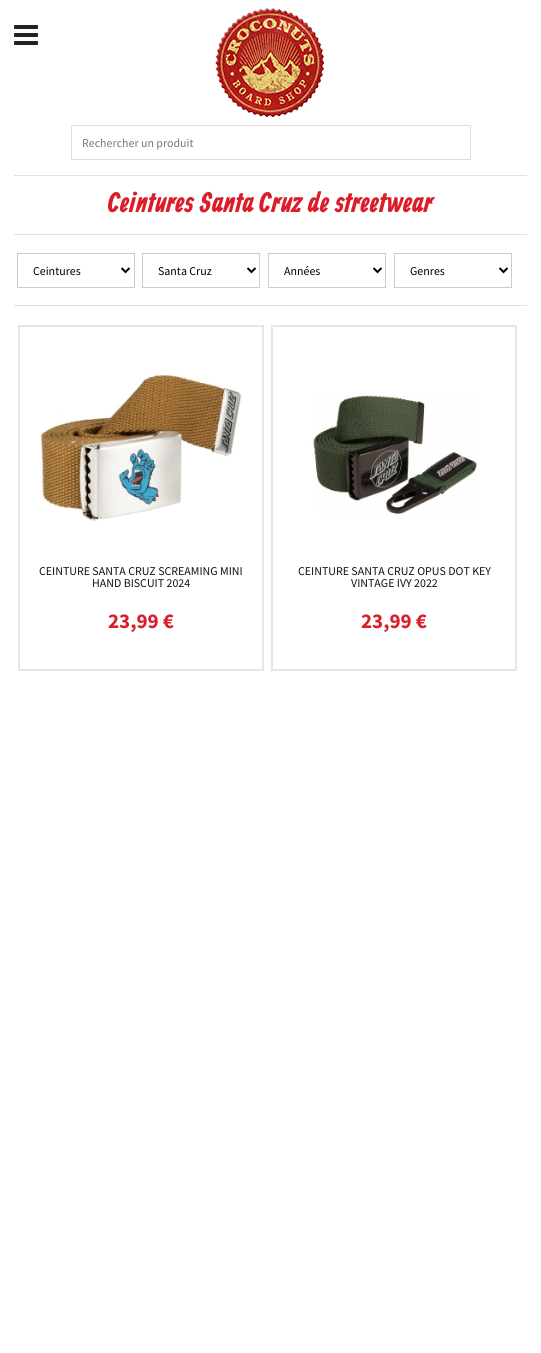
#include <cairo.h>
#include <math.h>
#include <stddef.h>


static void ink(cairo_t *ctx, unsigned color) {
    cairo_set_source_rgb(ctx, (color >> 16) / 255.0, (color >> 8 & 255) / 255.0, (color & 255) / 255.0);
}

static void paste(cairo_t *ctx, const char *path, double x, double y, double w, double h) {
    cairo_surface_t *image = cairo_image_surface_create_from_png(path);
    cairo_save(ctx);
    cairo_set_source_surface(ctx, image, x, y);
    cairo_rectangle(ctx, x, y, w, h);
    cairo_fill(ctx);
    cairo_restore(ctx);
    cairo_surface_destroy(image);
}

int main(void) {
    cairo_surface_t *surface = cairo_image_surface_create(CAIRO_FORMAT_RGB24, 541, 1353);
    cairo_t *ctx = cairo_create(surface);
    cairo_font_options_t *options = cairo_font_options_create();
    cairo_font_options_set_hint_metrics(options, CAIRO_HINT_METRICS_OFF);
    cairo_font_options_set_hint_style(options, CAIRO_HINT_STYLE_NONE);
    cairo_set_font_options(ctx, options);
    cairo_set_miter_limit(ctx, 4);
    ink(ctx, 0xFFFFFF);
    cairo_paint(ctx);
    paste(ctx, "media/1.png", 14, 25, 24, 20);
    paste(ctx, "media/2.png", 215, 8, 110, 110);
    cairo_rectangle(ctx, 71.5, 125.5, 399, 34);
    ink(ctx, 0xDEDEDE);
    cairo_set_line_width(ctx, 1);
    cairo_stroke(ctx);
    cairo_select_font_face(ctx, "Source Sans Pro", CAIRO_FONT_SLANT_NORMAL, CAIRO_FONT_WEIGHT_NORMAL);
    cairo_set_font_size(ctx, 11.9);
    ink(ctx, 0x777777);
    cairo_move_to(ctx, 82, 147);
    cairo_show_text(ctx, "Rechercher un produit");
    ink(ctx, 0xE1E1E1);
    cairo_rectangle(ctx, 14, 175, 513, 1);
    cairo_fill(ctx);
    cairo_select_font_face(ctx, "Allan", CAIRO_FONT_SLANT_NORMAL, CAIRO_FONT_WEIGHT_BOLD);
    cairo_set_font_size(ctx, 28);
    ink(ctx, 0xDB1D2A);
    cairo_move_to(ctx, 108, 212);
    cairo_show_text(ctx, "Ceintures Santa Cruz de streetwear");
    ink(ctx, 0xE1E1E1);
    cairo_rectangle(ctx, 14, 234, 513, 1);
    cairo_fill(ctx);
    cairo_rectangle(ctx, 17.5, 253.5, 117, 34);
    ink(ctx, 0xCCCCCC);
    cairo_stroke(ctx);
    cairo_new_path(ctx);
    cairo_move_to(ctx, 121.5, 268);
    cairo_line_to(ctx, 125.5, 272);
    cairo_line_to(ctx, 129.5, 268);
    ink(ctx, 0x000000);
    cairo_set_line_width(ctx, 2);
    cairo_stroke(ctx);
    cairo_select_font_face(ctx, "Source Sans Pro", CAIRO_FONT_SLANT_NORMAL, CAIRO_FONT_WEIGHT_NORMAL);
    cairo_set_font_size(ctx, 11.9);
    cairo_move_to(ctx, 33, 275);
    cairo_show_text(ctx, "Ceintures");
    cairo_rectangle(ctx, 142.5, 253.5, 117, 34);
    ink(ctx, 0xCCCCCC);
    cairo_set_line_width(ctx, 1);
    cairo_stroke(ctx);
    cairo_new_path(ctx);
    cairo_move_to(ctx, 247.5, 268);
    cairo_line_to(ctx, 251.5, 272);
    cairo_line_to(ctx, 255.5, 268);
    ink(ctx, 0x000000);
    cairo_set_line_width(ctx, 2);
    cairo_stroke(ctx);
    cairo_move_to(ctx, 158, 275);
    cairo_show_text(ctx, "Santa Cruz");
    cairo_rectangle(ctx, 268.5, 253.5, 117, 34);
    ink(ctx, 0xCCCCCC);
    cairo_set_line_width(ctx, 1);
    cairo_stroke(ctx);
    cairo_new_path(ctx);
    cairo_move_to(ctx, 373.5, 268);
    cairo_line_to(ctx, 377.5, 272);
    cairo_line_to(ctx, 381.5, 268);
    ink(ctx, 0x000000);
    cairo_set_line_width(ctx, 2);
    cairo_stroke(ctx);
    cairo_move_to(ctx, 284, 275);
    cairo_show_text(ctx, "Années");
    cairo_rectangle(ctx, 394.5, 253.5, 117, 34);
    ink(ctx, 0xCCCCCC);
    cairo_set_line_width(ctx, 1);
    cairo_stroke(ctx);
    cairo_new_path(ctx);
    cairo_move_to(ctx, 499.5, 268);
    cairo_line_to(ctx, 503.5, 272);
    cairo_line_to(ctx, 507.5, 268);
    ink(ctx, 0x000000);
    cairo_set_line_width(ctx, 2);
    cairo_stroke(ctx);
    cairo_move_to(ctx, 410, 275);
    cairo_show_text(ctx, "Genres");
    ink(ctx, 0xE1E1E1);
    cairo_rectangle(ctx, 14, 305, 513, 1);
    cairo_fill(ctx);
    cairo_rectangle(ctx, 19, 326, 244, 344);
    ink(ctx, 0xE6E6E6);
    cairo_stroke(ctx);
    paste(ctx, "media/3.png", 40, 374, 202, 147);
    ink(ctx, 0x111111);
    cairo_move_to(ctx, 39, 575);
    cairo_show_text(ctx, "CEINTURE SANTA CRUZ SCREAMING MINI");
    cairo_move_to(ctx, 92, 587);
    cairo_show_text(ctx, "HAND BISCUIT 2024");
    cairo_select_font_face(ctx, "Source Sans Pro", CAIRO_FONT_SLANT_NORMAL, CAIRO_FONT_WEIGHT_BOLD);
    cairo_set_font_size(ctx, 21);
    ink(ctx, 0xDB1D2A);
    cairo_move_to(ctx, 108, 628);
    cairo_show_text(ctx, "23,99 €");
    cairo_rectangle(ctx, 272, 326, 244, 344);
    ink(ctx, 0xE6E6E6);
    cairo_stroke(ctx);
    paste(ctx, "media/4.png", 311, 395, 167, 120);
    cairo_select_font_face(ctx, "Source Sans Pro", CAIRO_FONT_SLANT_NORMAL, CAIRO_FONT_WEIGHT_NORMAL);
    cairo_set_font_size(ctx, 11.9);
    ink(ctx, 0x111111);
    cairo_move_to(ctx, 298, 575);
    cairo_show_text(ctx, "CEINTURE SANTA CRUZ OPUS DOT KEY");
    cairo_move_to(ctx, 351, 587);
    cairo_show_text(ctx, "VINTAGE IVY 2022");
    cairo_select_font_face(ctx, "Source Sans Pro", CAIRO_FONT_SLANT_NORMAL, CAIRO_FONT_WEIGHT_BOLD);
    cairo_set_font_size(ctx, 21);
    ink(ctx, 0xDB1D2A);
    cairo_move_to(ctx, 361, 628);
    cairo_show_text(ctx, "23,99 €");
    cairo_surface_write_to_png(surface, "image.png");
    cairo_font_options_destroy(options);
    cairo_destroy(ctx);
    cairo_surface_destroy(surface);
    return 0;
}
